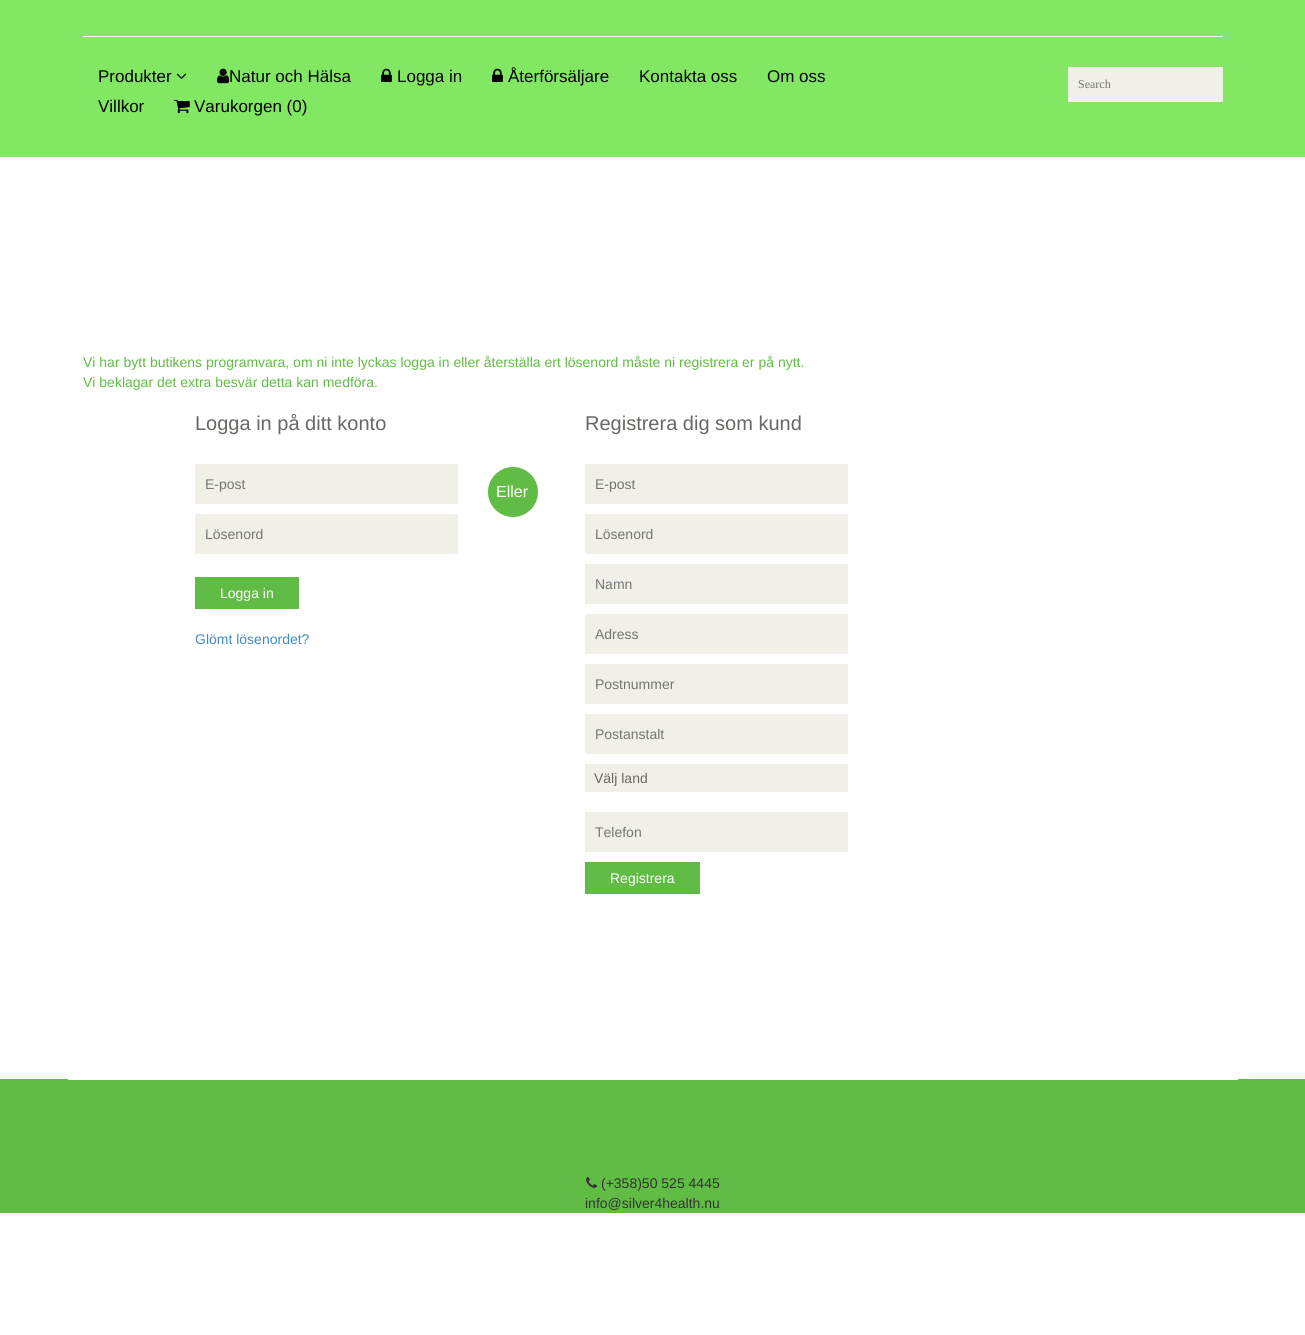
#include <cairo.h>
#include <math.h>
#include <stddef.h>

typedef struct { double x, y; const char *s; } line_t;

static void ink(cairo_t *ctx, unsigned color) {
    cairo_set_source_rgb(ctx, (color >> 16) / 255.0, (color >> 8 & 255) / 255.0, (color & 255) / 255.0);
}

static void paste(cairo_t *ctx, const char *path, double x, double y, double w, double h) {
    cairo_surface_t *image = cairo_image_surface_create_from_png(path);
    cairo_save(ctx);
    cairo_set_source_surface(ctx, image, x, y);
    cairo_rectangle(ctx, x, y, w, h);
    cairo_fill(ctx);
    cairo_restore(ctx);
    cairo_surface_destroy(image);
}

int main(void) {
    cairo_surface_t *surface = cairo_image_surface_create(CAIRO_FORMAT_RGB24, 1305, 1335);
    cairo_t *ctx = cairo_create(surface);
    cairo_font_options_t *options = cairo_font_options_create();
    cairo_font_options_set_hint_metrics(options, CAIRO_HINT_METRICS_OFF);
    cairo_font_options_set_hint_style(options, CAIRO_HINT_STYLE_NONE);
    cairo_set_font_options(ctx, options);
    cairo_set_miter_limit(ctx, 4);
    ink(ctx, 0xFFFFFF);
    cairo_paint(ctx);
    ink(ctx, 0x82E863);
    cairo_rectangle(ctx, 0, 0, 1305, 157);
    cairo_fill(ctx);
    ink(ctx, 0xF5F5F5);
    cairo_rectangle(ctx, 83, 36, 1140, 1);
    cairo_fill(ctx);
    cairo_select_font_face(ctx, "Liberation Sans", CAIRO_FONT_SLANT_NORMAL, CAIRO_FONT_WEIGHT_NORMAL);
    cairo_set_font_size(ctx, 17);
    ink(ctx, 0x000000);
    cairo_move_to(ctx, 98, 82);
    cairo_show_text(ctx, "Produkter");
    paste(ctx, "media/1.png", 176, 73, 11, 7);
    paste(ctx, "media/2.png", 217, 68, 13, 16);
    cairo_move_to(ctx, 229, 82);
    cairo_show_text(ctx, "Natur och Hälsa");
    paste(ctx, "media/3.png", 381, 68, 11, 14);
    cairo_move_to(ctx, 397, 82);
    cairo_show_text(ctx, "Logga in");
    paste(ctx, "media/3.png", 492, 68, 11, 14);
    {
        static const line_t items[] = {
            {508, 82, "Återförsäljare"},
            {639, 82, "Kontakta oss"},
            {767, 82, "Om oss"},
            {98, 112, "Villkor"},
        };
        for (size_t i = 0; i < sizeof items / sizeof *items; i++) {
            cairo_move_to(ctx, items[i].x, items[i].y);
            cairo_show_text(ctx, items[i].s);
        }
    }
    paste(ctx, "media/4.png", 174, 99, 16, 15);
    cairo_move_to(ctx, 194, 112);
    cairo_show_text(ctx, "Varukorgen (0)");
    ink(ctx, 0xF0F0E9);
    cairo_rectangle(ctx, 1068, 67, 155, 35);
    cairo_fill(ctx);
    cairo_select_font_face(ctx, "Liberation Serif", CAIRO_FONT_SLANT_NORMAL, CAIRO_FONT_WEIGHT_NORMAL);
    cairo_set_font_size(ctx, 12);
    ink(ctx, 0x757575);
    cairo_move_to(ctx, 1078, 88);
    cairo_show_text(ctx, "Search");
    cairo_select_font_face(ctx, "Liberation Sans", CAIRO_FONT_SLANT_NORMAL, CAIRO_FONT_WEIGHT_NORMAL);
    cairo_set_font_size(ctx, 14);
    ink(ctx, 0x61BC45);
    cairo_move_to(ctx, 83, 367);
    cairo_show_text(ctx, "Vi har bytt butikens programvara, om ni inte lyckas logga in eller återställa ert lösenord måste ni registrera er på nytt.");
    cairo_move_to(ctx, 83, 387);
    cairo_show_text(ctx, "Vi beklagar det extra besvär detta kan medföra.");
    cairo_set_font_size(ctx, 20);
    ink(ctx, 0x696763);
    cairo_move_to(ctx, 195, 430);
    cairo_show_text(ctx, "Logga in på ditt konto");
    ink(ctx, 0xF0F0E9);
    cairo_rectangle(ctx, 195, 464, 263, 40);
    cairo_fill(ctx);
    cairo_set_font_size(ctx, 14);
    ink(ctx, 0x757575);
    cairo_move_to(ctx, 205, 489);
    cairo_show_text(ctx, "E-post");
    ink(ctx, 0xF0F0E9);
    cairo_rectangle(ctx, 195, 514, 263, 40);
    cairo_fill(ctx);
    ink(ctx, 0x757575);
    cairo_move_to(ctx, 205, 539);
    cairo_show_text(ctx, "Lösenord");
    ink(ctx, 0x61BC45);
    cairo_rectangle(ctx, 195, 577, 104, 32);
    cairo_fill(ctx);
    ink(ctx, 0xFFFFFF);
    cairo_move_to(ctx, 220, 598);
    cairo_show_text(ctx, "Logga in");
    ink(ctx, 0x428BCA);
    cairo_move_to(ctx, 195, 644);
    cairo_show_text(ctx, "Glömt lösenordet?");
    ink(ctx, 0x61BC45);
    cairo_new_path(ctx);
    cairo_arc(ctx, 513, 492, 25, 0, 2 * M_PI);
    cairo_fill(ctx);
    cairo_set_font_size(ctx, 16);
    ink(ctx, 0xFFFFFF);
    cairo_move_to(ctx, 496, 497);
    cairo_show_text(ctx, "Eller");
    cairo_set_font_size(ctx, 20);
    ink(ctx, 0x696763);
    cairo_move_to(ctx, 585, 430);
    cairo_show_text(ctx, "Registrera dig som kund");
    ink(ctx, 0xF0F0E9);
    cairo_rectangle(ctx, 585, 464, 263, 40);
    cairo_fill(ctx);
    cairo_set_font_size(ctx, 14);
    ink(ctx, 0x757575);
    cairo_move_to(ctx, 595, 489);
    cairo_show_text(ctx, "E-post");
    ink(ctx, 0xF0F0E9);
    cairo_rectangle(ctx, 585, 514, 263, 40);
    cairo_fill(ctx);
    ink(ctx, 0x757575);
    cairo_move_to(ctx, 595, 539);
    cairo_show_text(ctx, "Lösenord");
    ink(ctx, 0xF0F0E9);
    cairo_rectangle(ctx, 585, 564, 263, 40);
    cairo_fill(ctx);
    ink(ctx, 0x757575);
    cairo_move_to(ctx, 595, 589);
    cairo_show_text(ctx, "Namn");
    ink(ctx, 0xF0F0E9);
    cairo_rectangle(ctx, 585, 614, 263, 40);
    cairo_fill(ctx);
    ink(ctx, 0x757575);
    cairo_move_to(ctx, 595, 639);
    cairo_show_text(ctx, "Adress");
    ink(ctx, 0xF0F0E9);
    cairo_rectangle(ctx, 585, 664, 263, 40);
    cairo_fill(ctx);
    ink(ctx, 0x757575);
    cairo_move_to(ctx, 595, 689);
    cairo_show_text(ctx, "Postnummer");
    ink(ctx, 0xF0F0E9);
    cairo_rectangle(ctx, 585, 714, 263, 40);
    cairo_fill(ctx);
    ink(ctx, 0x757575);
    cairo_move_to(ctx, 595, 739);
    cairo_show_text(ctx, "Postanstalt");
    ink(ctx, 0xF0F0E9);
    cairo_rectangle(ctx, 585, 764, 263, 28);
    cairo_fill(ctx);
    ink(ctx, 0x696763);
    cairo_move_to(ctx, 594, 783);
    cairo_show_text(ctx, "Välj land");
    ink(ctx, 0xF0F0E9);
    cairo_rectangle(ctx, 585, 812, 263, 40);
    cairo_fill(ctx);
    ink(ctx, 0x757575);
    cairo_move_to(ctx, 595, 837);
    cairo_show_text(ctx, "Telefon");
    ink(ctx, 0x61BC45);
    cairo_rectangle(ctx, 585, 862, 115, 32);
    cairo_fill(ctx);
    ink(ctx, 0xFFFFFF);
    cairo_move_to(ctx, 610, 883);
    cairo_show_text(ctx, "Registrera");
    ink(ctx, 0x61BC45);
    cairo_rectangle(ctx, 0, 1079, 1305, 134);
    cairo_fill(ctx);
    ink(ctx, 0xFFFFFF);
    cairo_rectangle(ctx, 68, 1079, 1170, 1);
    cairo_fill(ctx);
    paste(ctx, "media/5.png", 586, 1177, 11, 11);
    ink(ctx, 0x333333);
    cairo_move_to(ctx, 601, 1188);
    cairo_show_text(ctx, "(+358)50 525 4445");
    cairo_move_to(ctx, 585, 1208);
    cairo_show_text(ctx, "info@silver4health.nu");
    cairo_surface_write_to_png(surface, "image.png");
    cairo_font_options_destroy(options);
    cairo_destroy(ctx);
    cairo_surface_destroy(surface);
    return 0;
}
